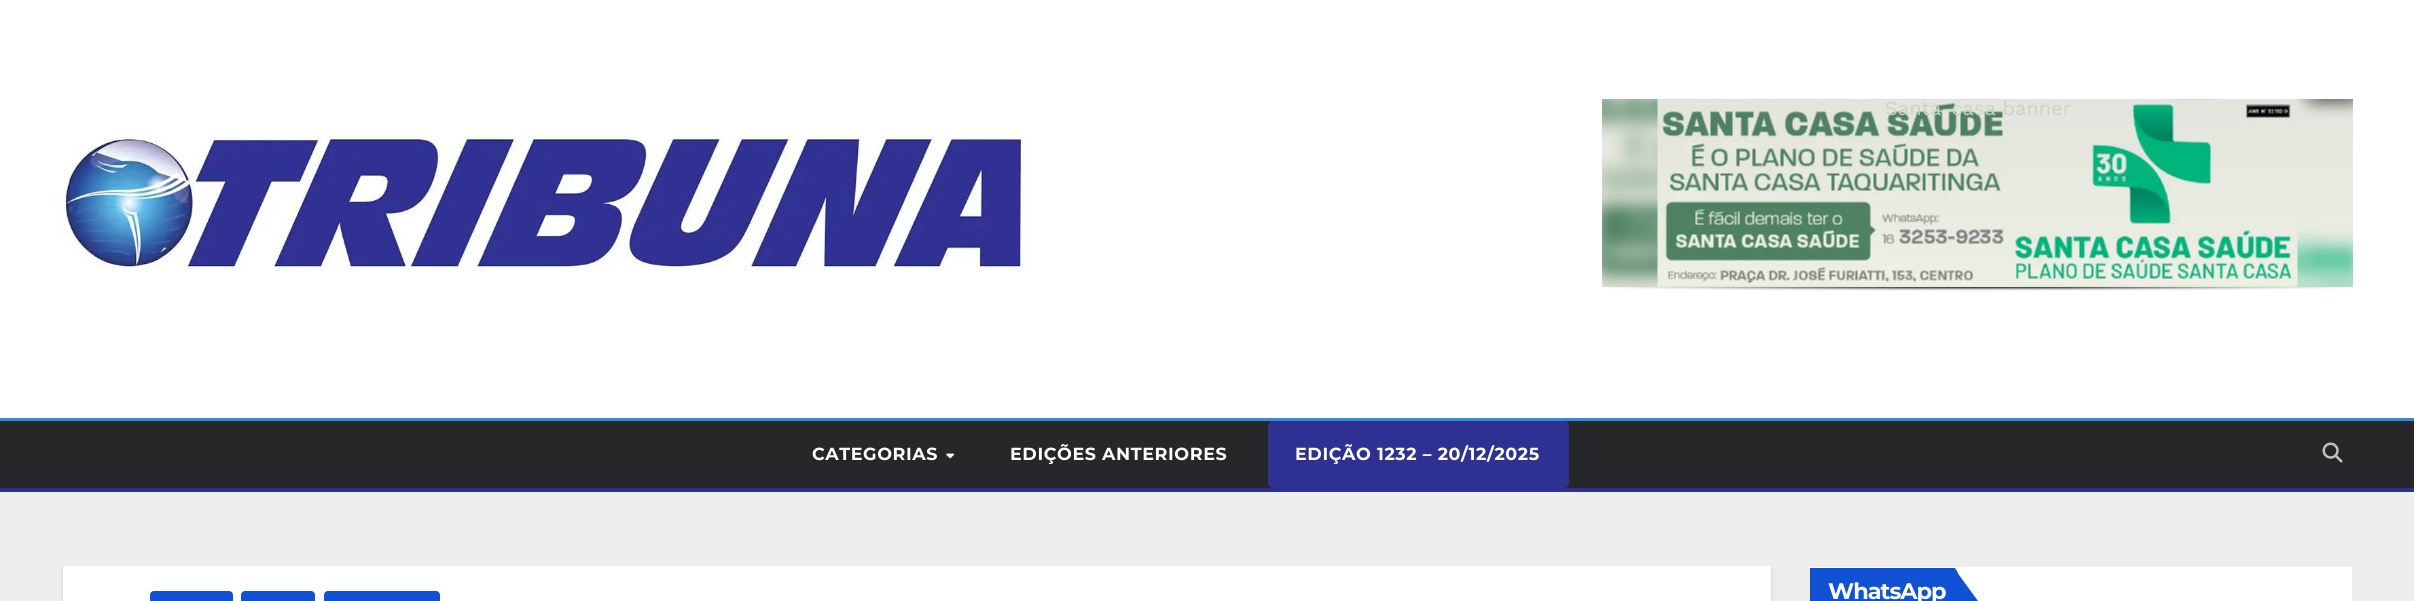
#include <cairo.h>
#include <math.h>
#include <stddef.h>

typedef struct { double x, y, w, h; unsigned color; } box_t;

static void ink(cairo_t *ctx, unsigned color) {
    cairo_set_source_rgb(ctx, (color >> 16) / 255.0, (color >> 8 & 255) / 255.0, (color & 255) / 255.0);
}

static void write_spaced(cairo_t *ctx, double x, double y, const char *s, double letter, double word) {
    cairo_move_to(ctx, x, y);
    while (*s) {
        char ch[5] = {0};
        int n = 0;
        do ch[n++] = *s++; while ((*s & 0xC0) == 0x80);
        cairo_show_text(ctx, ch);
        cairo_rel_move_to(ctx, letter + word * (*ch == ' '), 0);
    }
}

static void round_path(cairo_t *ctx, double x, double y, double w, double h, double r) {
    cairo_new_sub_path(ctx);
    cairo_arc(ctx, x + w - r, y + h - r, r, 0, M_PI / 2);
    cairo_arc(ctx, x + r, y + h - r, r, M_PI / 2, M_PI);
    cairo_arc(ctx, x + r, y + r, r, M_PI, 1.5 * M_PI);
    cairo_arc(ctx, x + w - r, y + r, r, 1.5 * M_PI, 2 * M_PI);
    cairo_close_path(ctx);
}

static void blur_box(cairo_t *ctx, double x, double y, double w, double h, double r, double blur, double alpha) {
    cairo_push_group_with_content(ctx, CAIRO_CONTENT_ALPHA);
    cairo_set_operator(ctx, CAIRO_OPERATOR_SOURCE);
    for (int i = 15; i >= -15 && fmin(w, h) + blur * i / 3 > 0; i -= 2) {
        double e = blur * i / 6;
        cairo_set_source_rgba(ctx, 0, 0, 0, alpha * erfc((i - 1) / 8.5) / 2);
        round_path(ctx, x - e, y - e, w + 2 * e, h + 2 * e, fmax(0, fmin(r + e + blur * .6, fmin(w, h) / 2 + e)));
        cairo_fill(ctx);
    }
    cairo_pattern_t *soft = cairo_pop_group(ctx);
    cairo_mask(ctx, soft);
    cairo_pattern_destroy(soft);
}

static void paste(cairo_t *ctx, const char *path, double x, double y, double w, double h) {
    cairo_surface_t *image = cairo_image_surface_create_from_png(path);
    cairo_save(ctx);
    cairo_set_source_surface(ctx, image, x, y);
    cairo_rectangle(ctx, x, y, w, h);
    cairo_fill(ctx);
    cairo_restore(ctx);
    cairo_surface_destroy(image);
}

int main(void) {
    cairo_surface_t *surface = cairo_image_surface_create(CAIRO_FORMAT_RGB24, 2414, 601);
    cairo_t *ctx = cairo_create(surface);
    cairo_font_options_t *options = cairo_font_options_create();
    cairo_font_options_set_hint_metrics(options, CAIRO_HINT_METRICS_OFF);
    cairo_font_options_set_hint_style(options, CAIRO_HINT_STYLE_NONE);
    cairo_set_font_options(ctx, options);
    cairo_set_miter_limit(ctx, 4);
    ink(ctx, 0xEEEEEE);
    cairo_paint(ctx);
    ink(ctx, 0xFFFFFF);
    cairo_rectangle(ctx, 0, 0, 2414, 418);
    cairo_fill(ctx);
    paste(ctx, "media/3.png", 1607, 286, 741, 5);
    paste(ctx, "media/1.png", 1602, 99, 751, 188);
    paste(ctx, "media/2.png", 1657, 99, 641, 188);
    cairo_select_font_face(ctx, "Work Sans", CAIRO_FONT_SLANT_NORMAL, CAIRO_FONT_WEIGHT_NORMAL);
    cairo_set_font_size(ctx, 20);
    ink(ctx, 0xC9D3C8);
    cairo_move_to(ctx, 1885, 115);
    cairo_show_text(ctx, "Santa-casa banner");
    paste(ctx, "media/4.png", 62, 132, 964, 140);
    {
        static const box_t items[] = {
            {0, 418, 2414, 3, 0x2C8DDD},
            {0, 488, 2414, 4, 0x2E3192},
            {0, 421, 2414, 67, 0x27272A},
        };
        for (size_t i = 0; i < sizeof items / sizeof *items; i++) {
            ink(ctx, items[i].color);
            cairo_rectangle(ctx, items[i].x, items[i].y, items[i].w, items[i].h);
            cairo_fill(ctx);
        }
    }
    cairo_select_font_face(ctx, "Montserrat", CAIRO_FONT_SLANT_NORMAL, CAIRO_FONT_WEIGHT_BOLD);
    cairo_set_font_size(ctx, 17.5);
    ink(ctx, 0xFFFFFF);
    write_spaced(ctx, 812, 460, "CATEGORIAS", 0.6, 0);
    paste(ctx, "media/5.png", 946, 453, 8, 6);
    write_spaced(ctx, 1010, 460, "EDIÇÕES ANTERIORES", 0.6, 0);
    ink(ctx, 0x2E3192);
    round_path(ctx, 1268, 421, 301, 67, 5);
    cairo_fill(ctx);
    ink(ctx, 0xFFFFFF);
    write_spaced(ctx, 1295, 460, "EDIÇÃO 1232 – 20/12/2025", 0.6, 0);
    paste(ctx, "media/6.png", 2322, 442, 21, 21);
    ink(ctx, 0x000000);
    blur_box(ctx, 63, 568, 1708, 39, 0, 2, 0.15);
    ink(ctx, 0xFFFFFF);
    cairo_rectangle(ctx, 63, 566, 1708, 35);
    cairo_fill(ctx);
    ink(ctx, 0x1151D3);
    round_path(ctx, 150, 591, 83, 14, 4);
    cairo_fill(ctx);
    round_path(ctx, 241, 591, 74, 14, 4);
    cairo_fill(ctx);
    round_path(ctx, 324, 591, 116, 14, 4);
    cairo_fill(ctx);
    ink(ctx, 0xFFFFFF);
    cairo_rectangle(ctx, 1810, 567, 542, 34);
    cairo_fill(ctx);
    ink(ctx, 0x1151D3);
    cairo_rectangle(ctx, 1810, 568, 144, 33);
    cairo_fill(ctx);
    cairo_set_font_size(ctx, 22.5);
    ink(ctx, 0xFFFFFF);
    write_spaced(ctx, 1828, 599, "WhatsApp", -1, 0);
    ink(ctx, 0x1151D3);
    cairo_new_path(ctx);
    cairo_move_to(ctx, 1954, 568);
    cairo_line_to(ctx, 1954, 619);
    cairo_line_to(ctx, 1991, 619);
    cairo_close_path(ctx);
    cairo_fill(ctx);
    cairo_new_path(ctx);
    cairo_move_to(ctx, 1955, 568);
    cairo_line_to(ctx, 1954, 568);
    cairo_line_to(ctx, 1954, 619);
    cairo_line_to(ctx, 1955, 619);
    cairo_line_to(ctx, 1958, 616);
    cairo_line_to(ctx, 1958, 573);
    cairo_close_path(ctx);
    cairo_fill(ctx);
    cairo_surface_write_to_png(surface, "image.png");
    cairo_font_options_destroy(options);
    cairo_destroy(ctx);
    cairo_surface_destroy(surface);
    return 0;
}
